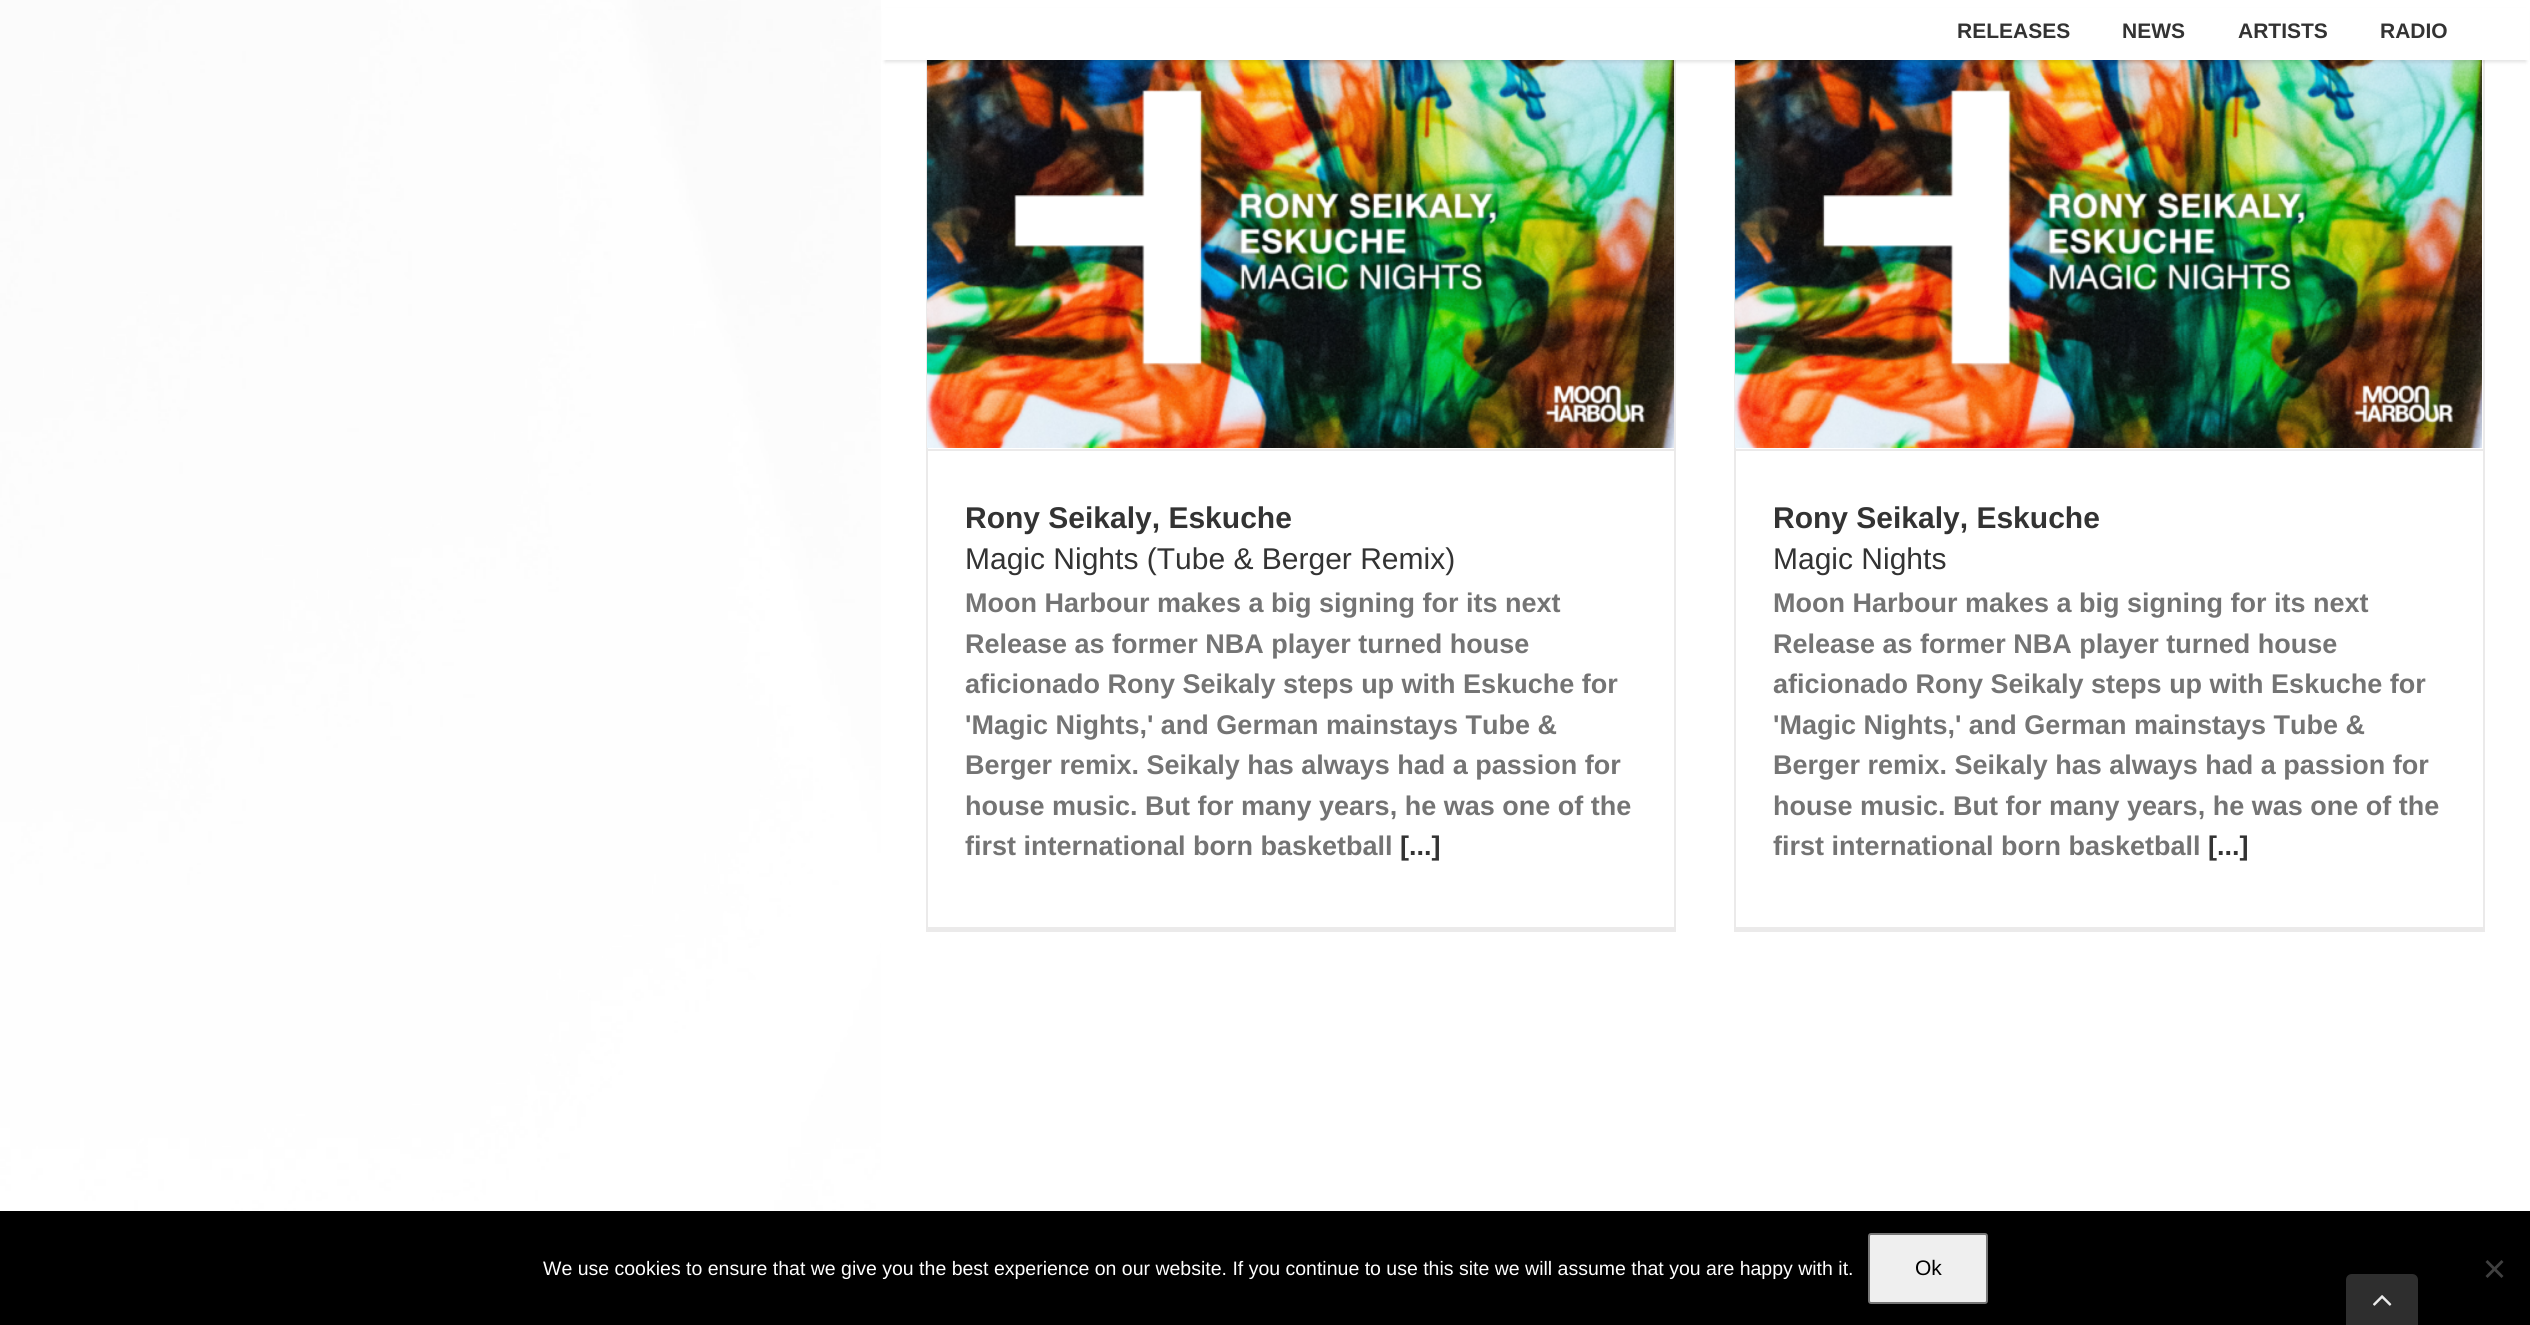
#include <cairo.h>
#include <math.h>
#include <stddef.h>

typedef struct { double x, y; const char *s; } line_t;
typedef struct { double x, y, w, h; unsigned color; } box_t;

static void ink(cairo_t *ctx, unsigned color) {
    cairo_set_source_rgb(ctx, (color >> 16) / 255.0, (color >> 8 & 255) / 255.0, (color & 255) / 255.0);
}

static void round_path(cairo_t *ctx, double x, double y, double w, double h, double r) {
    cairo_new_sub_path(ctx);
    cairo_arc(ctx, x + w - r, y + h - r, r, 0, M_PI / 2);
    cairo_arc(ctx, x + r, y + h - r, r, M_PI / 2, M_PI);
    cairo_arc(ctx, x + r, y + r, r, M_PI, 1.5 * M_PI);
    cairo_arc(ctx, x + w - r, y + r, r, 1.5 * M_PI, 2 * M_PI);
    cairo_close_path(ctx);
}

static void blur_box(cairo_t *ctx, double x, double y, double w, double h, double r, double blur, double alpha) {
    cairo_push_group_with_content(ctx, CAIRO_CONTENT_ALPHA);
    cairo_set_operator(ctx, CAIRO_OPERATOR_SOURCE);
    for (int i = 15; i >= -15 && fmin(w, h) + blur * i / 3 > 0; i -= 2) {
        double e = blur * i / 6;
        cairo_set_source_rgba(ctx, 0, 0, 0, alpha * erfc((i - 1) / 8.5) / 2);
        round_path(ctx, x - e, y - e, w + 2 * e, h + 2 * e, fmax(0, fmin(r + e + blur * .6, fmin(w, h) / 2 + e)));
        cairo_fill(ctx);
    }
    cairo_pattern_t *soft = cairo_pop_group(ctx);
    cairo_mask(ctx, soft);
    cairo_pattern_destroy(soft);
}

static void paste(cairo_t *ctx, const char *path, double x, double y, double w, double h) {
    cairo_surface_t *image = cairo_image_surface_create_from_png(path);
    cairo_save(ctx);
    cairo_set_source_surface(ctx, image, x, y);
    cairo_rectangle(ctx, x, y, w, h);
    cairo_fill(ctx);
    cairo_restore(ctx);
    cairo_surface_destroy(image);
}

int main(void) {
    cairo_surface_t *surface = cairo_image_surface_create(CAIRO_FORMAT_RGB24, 2530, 1325);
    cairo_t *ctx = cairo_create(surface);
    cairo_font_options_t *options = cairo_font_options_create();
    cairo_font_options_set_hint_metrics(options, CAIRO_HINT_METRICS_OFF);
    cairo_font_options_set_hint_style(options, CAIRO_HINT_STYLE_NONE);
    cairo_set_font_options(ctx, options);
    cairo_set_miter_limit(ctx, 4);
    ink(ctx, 0xFFFFFF);
    cairo_paint(ctx);
    paste(ctx, "media/1.png", 0, 0, 881, 1211);
    {
        static const box_t items[] = {
            {1674, 60, 2, 872, 0xEBEAEA},
            {926, 927, 750, 5, 0xEBEAEA},
            {926, 60, 2, 872, 0xEBEAEA},
        };
        for (size_t i = 0; i < sizeof items / sizeof *items; i++) {
            ink(ctx, items[i].color);
            cairo_rectangle(ctx, items[i].x, items[i].y, items[i].w, items[i].h);
            cairo_fill(ctx);
        }
    }
    paste(ctx, "media/2.png", 927, 60, 747, 388);
    {
        static const box_t items[] = {
            {2483, 60, 2, 872, 0xEBEAEA},
            {1734, 927, 750, 5, 0xEBEAEA},
            {1734, 60, 2, 872, 0xEBEAEA},
        };
        for (size_t i = 0; i < sizeof items / sizeof *items; i++) {
            ink(ctx, items[i].color);
            cairo_rectangle(ctx, items[i].x, items[i].y, items[i].w, items[i].h);
            cairo_fill(ctx);
        }
    }
    paste(ctx, "media/3.png", 1735, 60, 747, 388);
    ink(ctx, 0x000000);
    blur_box(ctx, 885, 11, 1641, 51, 0, 2, 0.12);
    ink(ctx, 0xFFFFFF);
    cairo_rectangle(ctx, 882, 8, 1647, 52);
    cairo_fill(ctx);
    cairo_select_font_face(ctx, "Liberation Sans", CAIRO_FONT_SLANT_NORMAL, CAIRO_FONT_WEIGHT_BOLD);
    cairo_set_font_size(ctx, 21);
    ink(ctx, 0x333333);
    {
        static const line_t items[] = {
            {1957, 38, "RELEASES"},
            {2122, 38, "NEWS"},
            {2238, 38, "ARTISTS"},
            {2380, 38, "RADIO"},
        };
        for (size_t i = 0; i < sizeof items / sizeof *items; i++) {
            cairo_move_to(ctx, items[i].x, items[i].y);
            cairo_show_text(ctx, items[i].s);
        }
    }
    ink(ctx, 0xEBEAEA);
    cairo_rectangle(ctx, 927, 449, 747, 2);
    cairo_fill(ctx);
    cairo_set_font_size(ctx, 30);
    ink(ctx, 0x333333);
    cairo_move_to(ctx, 965, 528);
    cairo_show_text(ctx, "Rony Seikaly, Eskuche");
    cairo_select_font_face(ctx, "Liberation Sans", CAIRO_FONT_SLANT_NORMAL, CAIRO_FONT_WEIGHT_NORMAL);
    cairo_move_to(ctx, 965, 569);
    cairo_show_text(ctx, "Magic Nights (Tube & Berger Remix)");
    cairo_select_font_face(ctx, "Liberation Sans", CAIRO_FONT_SLANT_NORMAL, CAIRO_FONT_WEIGHT_BOLD);
    cairo_set_font_size(ctx, 27);
    ink(ctx, 0x747474);
    {
        static const line_t items[] = {
            {965, 612, "Moon Harbour makes a big signing for its next"},
            {965, 653, "Release as former NBA player turned house"},
            {965, 693, "aficionado Rony Seikaly steps up with Eskuche for"},
            {965, 734, "'Magic Nights,' and German mainstays Tube &"},
            {965, 774, "Berger remix. Seikaly has always had a passion for"},
            {965, 815, "house music. But for many years, he was one of the"},
            {965, 855, "first international born basketball"},
        };
        for (size_t i = 0; i < sizeof items / sizeof *items; i++) {
            cairo_move_to(ctx, items[i].x, items[i].y);
            cairo_show_text(ctx, items[i].s);
        }
    }
    ink(ctx, 0x333333);
    cairo_move_to(ctx, 1400, 855);
    cairo_show_text(ctx, "[...]");
    ink(ctx, 0xEBEAEA);
    cairo_rectangle(ctx, 1736, 449, 747, 2);
    cairo_fill(ctx);
    cairo_set_font_size(ctx, 30);
    ink(ctx, 0x333333);
    cairo_move_to(ctx, 1773, 528);
    cairo_show_text(ctx, "Rony Seikaly, Eskuche");
    cairo_select_font_face(ctx, "Liberation Sans", CAIRO_FONT_SLANT_NORMAL, CAIRO_FONT_WEIGHT_NORMAL);
    cairo_move_to(ctx, 1773, 569);
    cairo_show_text(ctx, "Magic Nights");
    cairo_select_font_face(ctx, "Liberation Sans", CAIRO_FONT_SLANT_NORMAL, CAIRO_FONT_WEIGHT_BOLD);
    cairo_set_font_size(ctx, 27);
    ink(ctx, 0x747474);
    {
        static const line_t items[] = {
            {1773, 612, "Moon Harbour makes a big signing for its next"},
            {1773, 653, "Release as former NBA player turned house"},
            {1773, 693, "aficionado Rony Seikaly steps up with Eskuche for"},
            {1773, 734, "'Magic Nights,' and German mainstays Tube &"},
            {1773, 774, "Berger remix. Seikaly has always had a passion for"},
            {1773, 815, "house music. But for many years, he was one of the"},
            {1773, 855, "first international born basketball"},
        };
        for (size_t i = 0; i < sizeof items / sizeof *items; i++) {
            cairo_move_to(ctx, items[i].x, items[i].y);
            cairo_show_text(ctx, items[i].s);
        }
    }
    ink(ctx, 0x333333);
    cairo_move_to(ctx, 2208, 855);
    cairo_show_text(ctx, "[...]");
    ink(ctx, 0x000000);
    cairo_rectangle(ctx, 0, 1211, 2530, 114);
    cairo_fill(ctx);
    cairo_select_font_face(ctx, "Liberation Sans", CAIRO_FONT_SLANT_NORMAL, CAIRO_FONT_WEIGHT_NORMAL);
    cairo_set_font_size(ctx, 19.5);
    ink(ctx, 0xFFFFFF);
    cairo_move_to(ctx, 543, 1275);
    cairo_show_text(ctx, "We use cookies to ensure that we give you the best experience on our website. If you continue to use this site we will assume that you are happy with it.");
    ink(ctx, 0xEFEFEF);
    round_path(ctx, 1869, 1234, 118, 69, 2);
    cairo_fill_preserve(ctx);
    ink(ctx, 0x767676);
    cairo_stroke(ctx);
    cairo_set_font_size(ctx, 21);
    ink(ctx, 0x000000);
    cairo_move_to(ctx, 1915, 1275);
    cairo_show_text(ctx, "Ok");
    ink(ctx, 0x404040);
    cairo_new_path(ctx);
    cairo_move_to(ctx, 2501.5, 1260);
    cairo_line_to(ctx, 2503.5, 1262);
    cairo_line_to(ctx, 2487.5, 1278);
    cairo_line_to(ctx, 2485.5, 1276);
    cairo_close_path(ctx);
    cairo_fill(ctx);
    cairo_new_path(ctx);
    cairo_move_to(ctx, 2485.5, 1262);
    cairo_line_to(ctx, 2487.5, 1260);
    cairo_line_to(ctx, 2503.5, 1276);
    cairo_line_to(ctx, 2501.5, 1278);
    cairo_close_path(ctx);
    cairo_fill(ctx);
    ink(ctx, 0x2E2E2E);
    cairo_new_path(ctx);
    cairo_move_to(ctx, 2352, 1274);
    cairo_line_to(ctx, 2412, 1274);
    cairo_curve_to(ctx, 2415.5, 1274, 2418, 1276.5, 2418, 1280);
    cairo_line_to(ctx, 2418, 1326);
    cairo_line_to(ctx, 2346, 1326);
    cairo_line_to(ctx, 2346, 1280);
    cairo_curve_to(ctx, 2346, 1276.5, 2348.5, 1274, 2352, 1274);
    cairo_close_path(ctx);
    cairo_fill(ctx);
    paste(ctx, "media/4.png", 2373, 1295, 19, 11);
    cairo_surface_write_to_png(surface, "image.png");
    cairo_font_options_destroy(options);
    cairo_destroy(ctx);
    cairo_surface_destroy(surface);
    return 0;
}
